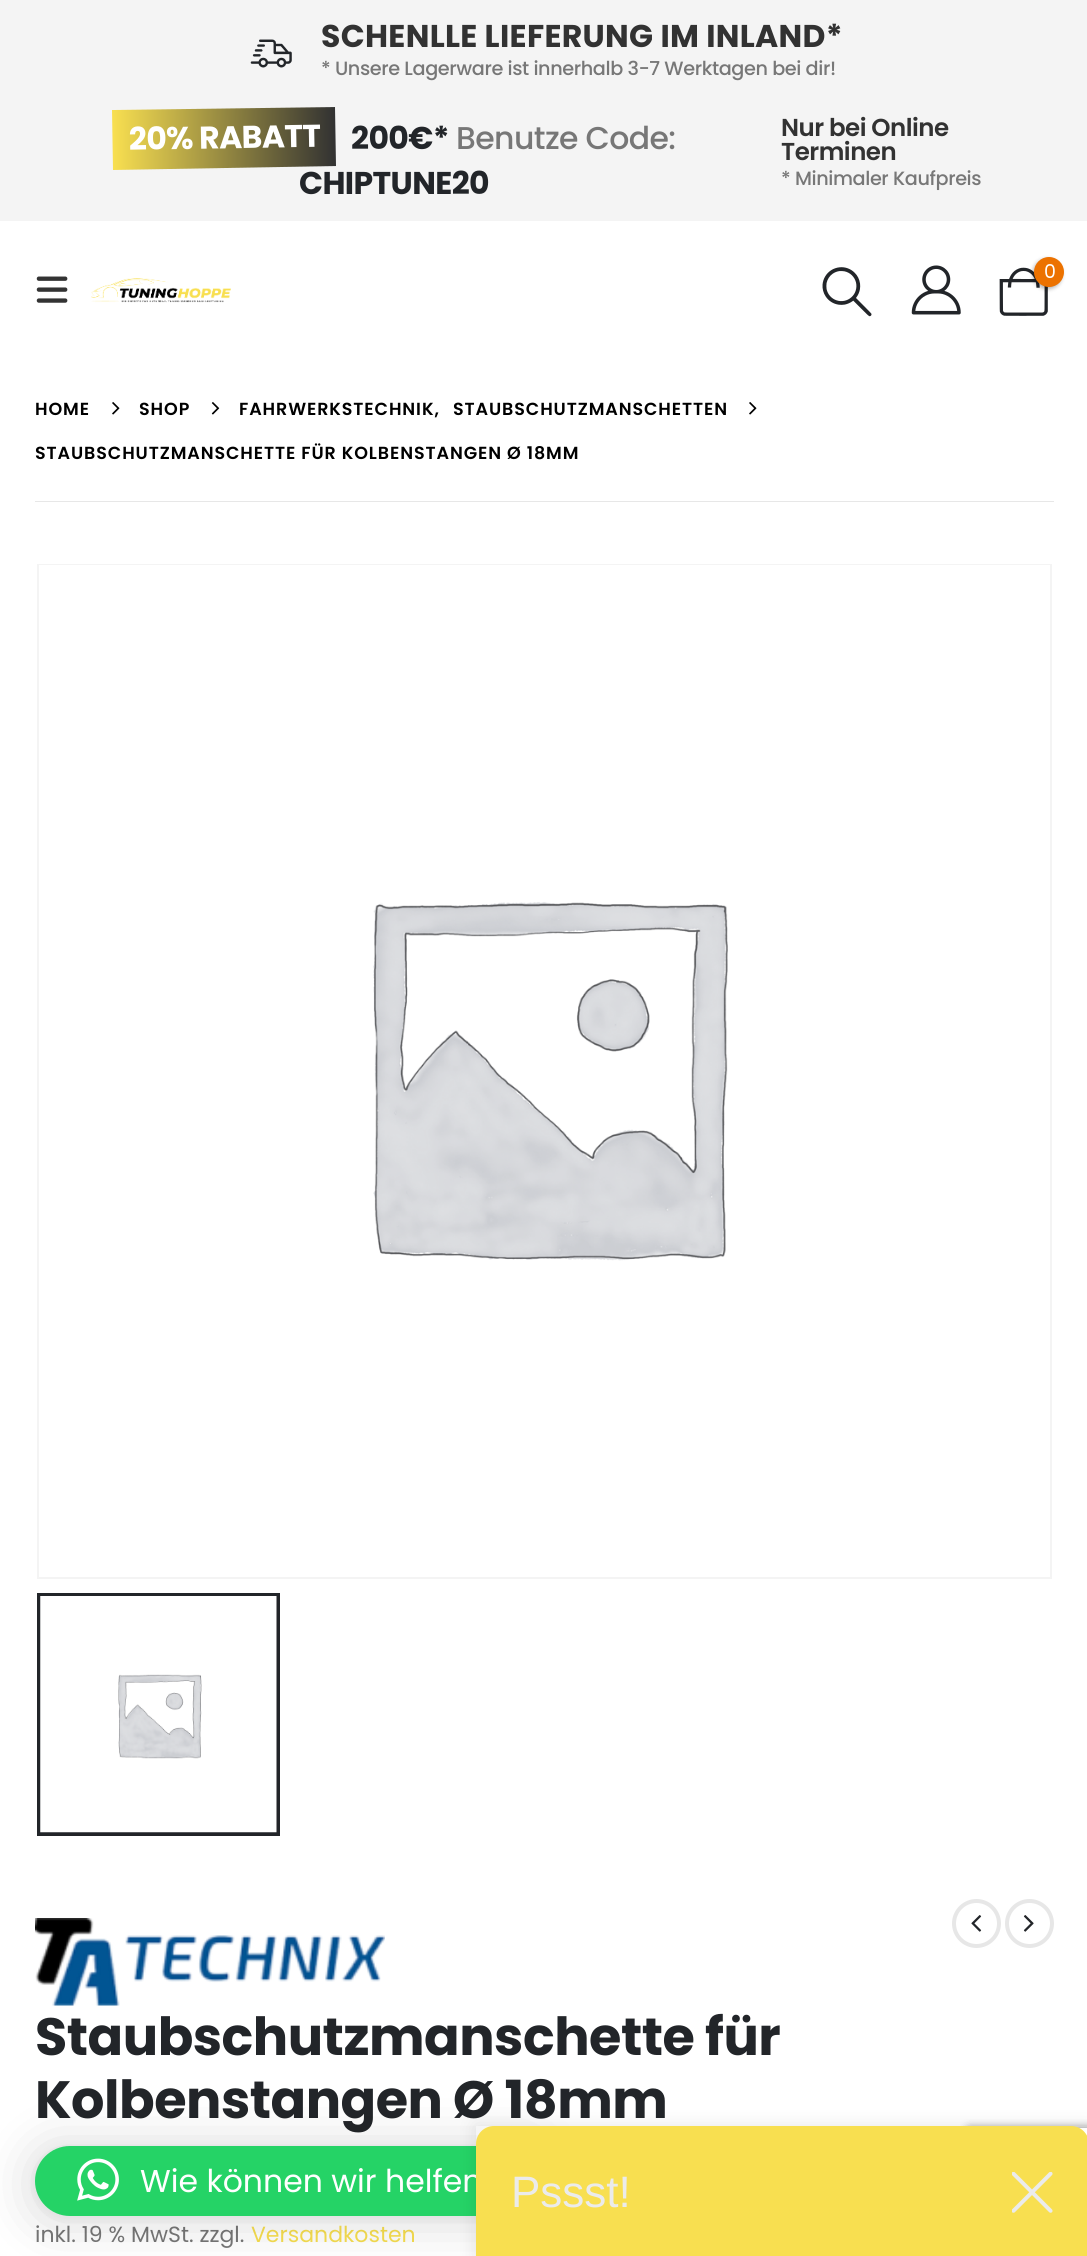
#include <cairo.h>
#include <math.h>
#include <stddef.h>


static void ink(cairo_t *ctx, unsigned color) {
    cairo_set_source_rgb(ctx, (color >> 16) / 255.0, (color >> 8 & 255) / 255.0, (color & 255) / 255.0);
}

static void write_spaced(cairo_t *ctx, double x, double y, const char *s, double letter, double word) {
    cairo_move_to(ctx, x, y);
    while (*s) {
        char ch[5] = {0};
        int n = 0;
        do ch[n++] = *s++; while ((*s & 0xC0) == 0x80);
        cairo_show_text(ctx, ch);
        cairo_rel_move_to(ctx, letter + word * (*ch == ' '), 0);
    }
}

static void round_path(cairo_t *ctx, double x, double y, double w, double h, double r) {
    cairo_new_sub_path(ctx);
    cairo_arc(ctx, x + w - r, y + h - r, r, 0, M_PI / 2);
    cairo_arc(ctx, x + r, y + h - r, r, M_PI / 2, M_PI);
    cairo_arc(ctx, x + r, y + r, r, M_PI, 1.5 * M_PI);
    cairo_arc(ctx, x + w - r, y + r, r, 1.5 * M_PI, 2 * M_PI);
    cairo_close_path(ctx);
}

static void blur_box(cairo_t *ctx, double x, double y, double w, double h, double r, double blur, double alpha) {
    cairo_push_group_with_content(ctx, CAIRO_CONTENT_ALPHA);
    cairo_set_operator(ctx, CAIRO_OPERATOR_SOURCE);
    for (int i = 15; i >= -15 && fmin(w, h) + blur * i / 3 > 0; i -= 2) {
        double e = blur * i / 6;
        cairo_set_source_rgba(ctx, 0, 0, 0, alpha * erfc((i - 1) / 8.5) / 2);
        round_path(ctx, x - e, y - e, w + 2 * e, h + 2 * e, fmax(0, fmin(r + e + blur * .6, fmin(w, h) / 2 + e)));
        cairo_fill(ctx);
    }
    cairo_pattern_t *soft = cairo_pop_group(ctx);
    cairo_mask(ctx, soft);
    cairo_pattern_destroy(soft);
}

static void paste(cairo_t *ctx, const char *path, double x, double y, double w, double h) {
    cairo_surface_t *image = cairo_image_surface_create_from_png(path);
    cairo_save(ctx);
    cairo_set_source_surface(ctx, image, x, y);
    cairo_rectangle(ctx, x, y, w, h);
    cairo_fill(ctx);
    cairo_restore(ctx);
    cairo_surface_destroy(image);
}

int main(void) {
    cairo_surface_t *surface = cairo_image_surface_create(CAIRO_FORMAT_RGB24, 1087, 2256);
    cairo_t *ctx = cairo_create(surface);
    cairo_font_options_t *options = cairo_font_options_create();
    cairo_font_options_set_hint_metrics(options, CAIRO_HINT_METRICS_OFF);
    cairo_font_options_set_hint_style(options, CAIRO_HINT_STYLE_NONE);
    cairo_set_font_options(ctx, options);
    cairo_set_miter_limit(ctx, 4);
    cairo_pattern_t *gradient;
    ink(ctx, 0xFFFFFF);
    cairo_paint(ctx);
    ink(ctx, 0xF4F4F4);
    cairo_rectangle(ctx, 0, 0, 1087, 221);
    cairo_fill(ctx);
    paste(ctx, "media/1.png", 250, 39, 42, 29);
    cairo_select_font_face(ctx, "Poppins", CAIRO_FONT_SLANT_NORMAL, CAIRO_FONT_WEIGHT_BOLD);
    cairo_set_font_size(ctx, 31.5);
    ink(ctx, 0x323232);
    write_spaced(ctx, 321, 47, "SCHENLLE LIEFERUNG IM INLAND*", 0.3, 0);
    cairo_select_font_face(ctx, "Poppins Medium", CAIRO_FONT_SLANT_NORMAL, CAIRO_FONT_WEIGHT_NORMAL);
    cairo_set_font_size(ctx, 19.25);
    ink(ctx, 0x777777);
    write_spaced(ctx, 321, 75, "* Unsere Lagerware ist innerhalb 3-7 Werktagen bei dir!", -0.4, 0);
    gradient = cairo_pattern_create_linear(113, 140, 335, 136);
    cairo_pattern_add_color_stop_rgba(gradient, 0, 0.973, 0.875, 0.314, 1);
    cairo_pattern_add_color_stop_rgba(gradient, 1, 0.196, 0.196, 0.196, 1);
    cairo_set_source(ctx, gradient);
    cairo_pattern_destroy(gradient);
    cairo_new_path(ctx);
    cairo_move_to(ctx, 112, 110);
    cairo_line_to(ctx, 335, 107);
    cairo_line_to(ctx, 336, 166);
    cairo_line_to(ctx, 113, 170);
    cairo_close_path(ctx);
    cairo_fill(ctx);
    cairo_select_font_face(ctx, "Poppins", CAIRO_FONT_SLANT_NORMAL, CAIRO_FONT_WEIGHT_BOLD);
    cairo_set_font_size(ctx, 31.5);
    ink(ctx, 0xFFFFFF);
    cairo_save(ctx);
    cairo_translate(ctx, 129, 150);
    cairo_rotate(ctx, -1 * M_PI / 180);
    write_spaced(ctx, 0, 0, "20% RABATT", -0.6, 0);
    cairo_restore(ctx);
    ink(ctx, 0x222529);
    write_spaced(ctx, 351, 149, "200€*", -0.6, 0);
    cairo_select_font_face(ctx, "Poppins Medium", CAIRO_FONT_SLANT_NORMAL, CAIRO_FONT_WEIGHT_NORMAL);
    ink(ctx, 0x777777);
    write_spaced(ctx, 456, 149, "Benutze Code:", -0.6, 0);
    cairo_select_font_face(ctx, "Poppins", CAIRO_FONT_SLANT_NORMAL, CAIRO_FONT_WEIGHT_BOLD);
    ink(ctx, 0x222529);
    write_spaced(ctx, 299, 194, "CHIPTUNE20", -0.6, 0);
    cairo_select_font_face(ctx, "Poppins SemiBold", CAIRO_FONT_SLANT_NORMAL, CAIRO_FONT_WEIGHT_NORMAL);
    cairo_set_font_size(ctx, 24.5);
    ink(ctx, 0x323232);
    write_spaced(ctx, 781, 136, "Nur bei Online", -0.5, 0);
    write_spaced(ctx, 781, 160, "Terminen", -0.5, 0);
    cairo_select_font_face(ctx, "Poppins Medium", CAIRO_FONT_SLANT_NORMAL, CAIRO_FONT_WEIGHT_NORMAL);
    cairo_set_font_size(ctx, 19.25);
    ink(ctx, 0x777777);
    write_spaced(ctx, 781, 185, "* Minimaler Kaufpreis", -0.4, 0);
    paste(ctx, "media/2.png", 36, 276, 32, 27);
    paste(ctx, "media/3.png", 91, 278, 140, 25);
    paste(ctx, "media/4.png", 822, 267, 50, 50);
    paste(ctx, "media/5.png", 911, 265, 50, 50);
    paste(ctx, "media/6.png", 999, 267, 49, 49);
    ink(ctx, 0x000000);
    blur_box(ctx, 1033, 259, 29, 30, 14.5, 2, 0.3);
    ink(ctx, 0xEC7200);
    cairo_arc(ctx, 1049, 272, 15, 0, 2 * M_PI);
    cairo_fill(ctx);
    cairo_select_font_face(ctx, "Poppins", CAIRO_FONT_SLANT_NORMAL, CAIRO_FONT_WEIGHT_NORMAL);
    cairo_set_font_size(ctx, 19);
    ink(ctx, 0xFFFFFF);
    cairo_move_to(ctx, 1044, 278);
    cairo_show_text(ctx, "0");
    ink(ctx, 0xE7E7E7);
    cairo_rectangle(ctx, 35, 501, 1019, 1);
    cairo_fill(ctx);
    cairo_select_font_face(ctx, "Poppins SemiBold", CAIRO_FONT_SLANT_NORMAL, CAIRO_FONT_WEIGHT_NORMAL);
    cairo_set_font_size(ctx, 17.5);
    ink(ctx, 0x000000);
    write_spaced(ctx, 35, 415, "HOME", 0.9, 0);
    paste(ctx, "media/7.png", 112, 402, 8, 13);
    write_spaced(ctx, 139, 415, "SHOP", 0.9, 0);
    paste(ctx, "media/8.png", 211, 402, 9, 13);
    write_spaced(ctx, 239, 415, "FAHRWERKSTECHNIK,", 0.9, 0);
    write_spaced(ctx, 453, 415, "STAUBSCHUTZMANSCHETTEN", 0.9, 0);
    paste(ctx, "media/7.png", 749, 402, 8, 13);
    write_spaced(ctx, 35, 459, "STAUBSCHUTZMANSCHETTE FÜR KOLBENSTANGEN Ø 18MM", 0.9, 0);
    cairo_rectangle(ctx, 38, 565, 1013, 1013);
    ink(ctx, 0xF4F4F4);
    cairo_stroke(ctx);
    paste(ctx, "media/9.png", 39, 565, 1011, 696);
    cairo_rectangle(ctx, 39, 1595, 239, 239);
    ink(ctx, 0x222529);
    cairo_set_line_width(ctx, 4);
    cairo_stroke(ctx);
    paste(ctx, "media/10.png", 40, 1596, 237, 237);
    paste(ctx, "media/11.png", 35, 1918, 350, 88);
    cairo_arc(ctx, 976.5, 1923.5, 22.5, 0, 2 * M_PI);
    ink(ctx, 0xE7E7E7);
    cairo_stroke(ctx);
    paste(ctx, "media/12.png", 971, 1915, 11, 17);
    cairo_arc(ctx, 1029.5, 1923.5, 22.5, 0, 2 * M_PI);
    cairo_stroke(ctx);
    paste(ctx, "media/13.png", 1023, 1915, 11, 17);
    cairo_select_font_face(ctx, "Poppins", CAIRO_FONT_SLANT_NORMAL, CAIRO_FONT_WEIGHT_BOLD);
    cairo_set_font_size(ctx, 52.5);
    ink(ctx, 0x222529);
    write_spaced(ctx, 35, 2055, "Staubschutzmanschette für", -0.5, 0);
    write_spaced(ctx, 35, 2118, "Kolbenstangen Ø 18mm", -0.5, 0);
    cairo_select_font_face(ctx, "Poppins", CAIRO_FONT_SLANT_NORMAL, CAIRO_FONT_WEIGHT_NORMAL);
    cairo_set_font_size(ctx, 22);
    ink(ctx, 0x777777);
    cairo_move_to(ctx, 35, 2242);
    cairo_show_text(ctx, "inkl. 19 % MwSt. zzgl.");
    ink(ctx, 0xF8DF50);
    cairo_move_to(ctx, 251, 2242);
    cairo_show_text(ctx, "Versandkosten");
    ink(ctx, 0x000000);
    blur_box(ctx, 35, 2149, 506, 70, 35, 28, 0.16);
    blur_box(ctx, 35, 2147, 506, 70, 35, 5, 0.06);
    ink(ctx, 0x25D366);
    round_path(ctx, 35, 2146, 506, 70, 35);
    cairo_fill(ctx);
    paste(ctx, "media/14.png", 77, 2158, 42, 43);
    cairo_set_font_size(ctx, 31.5);
    ink(ctx, 0xFFFFFF);
    cairo_move_to(ctx, 140, 2192);
    cairo_show_text(ctx, "Wie können wir helfen");
    cairo_save(ctx);
    cairo_set_fill_rule(ctx, CAIRO_FILL_RULE_EVEN_ODD);
    cairo_new_path(ctx);
    cairo_move_to(ctx, 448, 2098);
    cairo_line_to(ctx, 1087, 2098);
    cairo_line_to(ctx, 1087, 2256);
    cairo_line_to(ctx, 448, 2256);
    cairo_close_path(ctx);
    cairo_move_to(ctx, 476, 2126);
    cairo_line_to(ctx, 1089, 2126);
    cairo_line_to(ctx, 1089, 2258);
    cairo_line_to(ctx, 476, 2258);
    cairo_close_path(ctx);
    cairo_clip(ctx);
    ink(ctx, 0x000000);
    blur_box(ctx, 476, 2126, 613, 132, 0, 9, 0.1);
    cairo_restore(ctx);
    cairo_save(ctx);
    cairo_rectangle(ctx, 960, 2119, 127, 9);
    cairo_clip(ctx);
    ink(ctx, 0x808080);
    blur_box(ctx, 966, 2128, 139, 105, 4, 4.5, 1);
    cairo_restore(ctx);
    ink(ctx, 0xF8DF50);
    cairo_new_path(ctx);
    cairo_move_to(ctx, 494, 2126);
    cairo_line_to(ctx, 1071, 2126);
    cairo_curve_to(ctx, 1081, 2126, 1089, 2134, 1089, 2144);
    cairo_line_to(ctx, 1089, 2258);
    cairo_line_to(ctx, 476, 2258);
    cairo_line_to(ctx, 476, 2144);
    cairo_curve_to(ctx, 476, 2134, 484, 2126, 494, 2126);
    cairo_close_path(ctx);
    cairo_fill(ctx);
    cairo_select_font_face(ctx, "Liberation Sans", CAIRO_FONT_SLANT_NORMAL, CAIRO_FONT_WEIGHT_NORMAL);
    cairo_set_font_size(ctx, 44);
    ink(ctx, 0xEBEBEB);
    cairo_move_to(ctx, 511, 2207);
    cairo_show_text(ctx, "Pssst!");
    paste(ctx, "media/15.png", 1012, 2172, 41, 41);
    cairo_surface_write_to_png(surface, "image.png");
    cairo_font_options_destroy(options);
    cairo_destroy(ctx);
    cairo_surface_destroy(surface);
    return 0;
}
